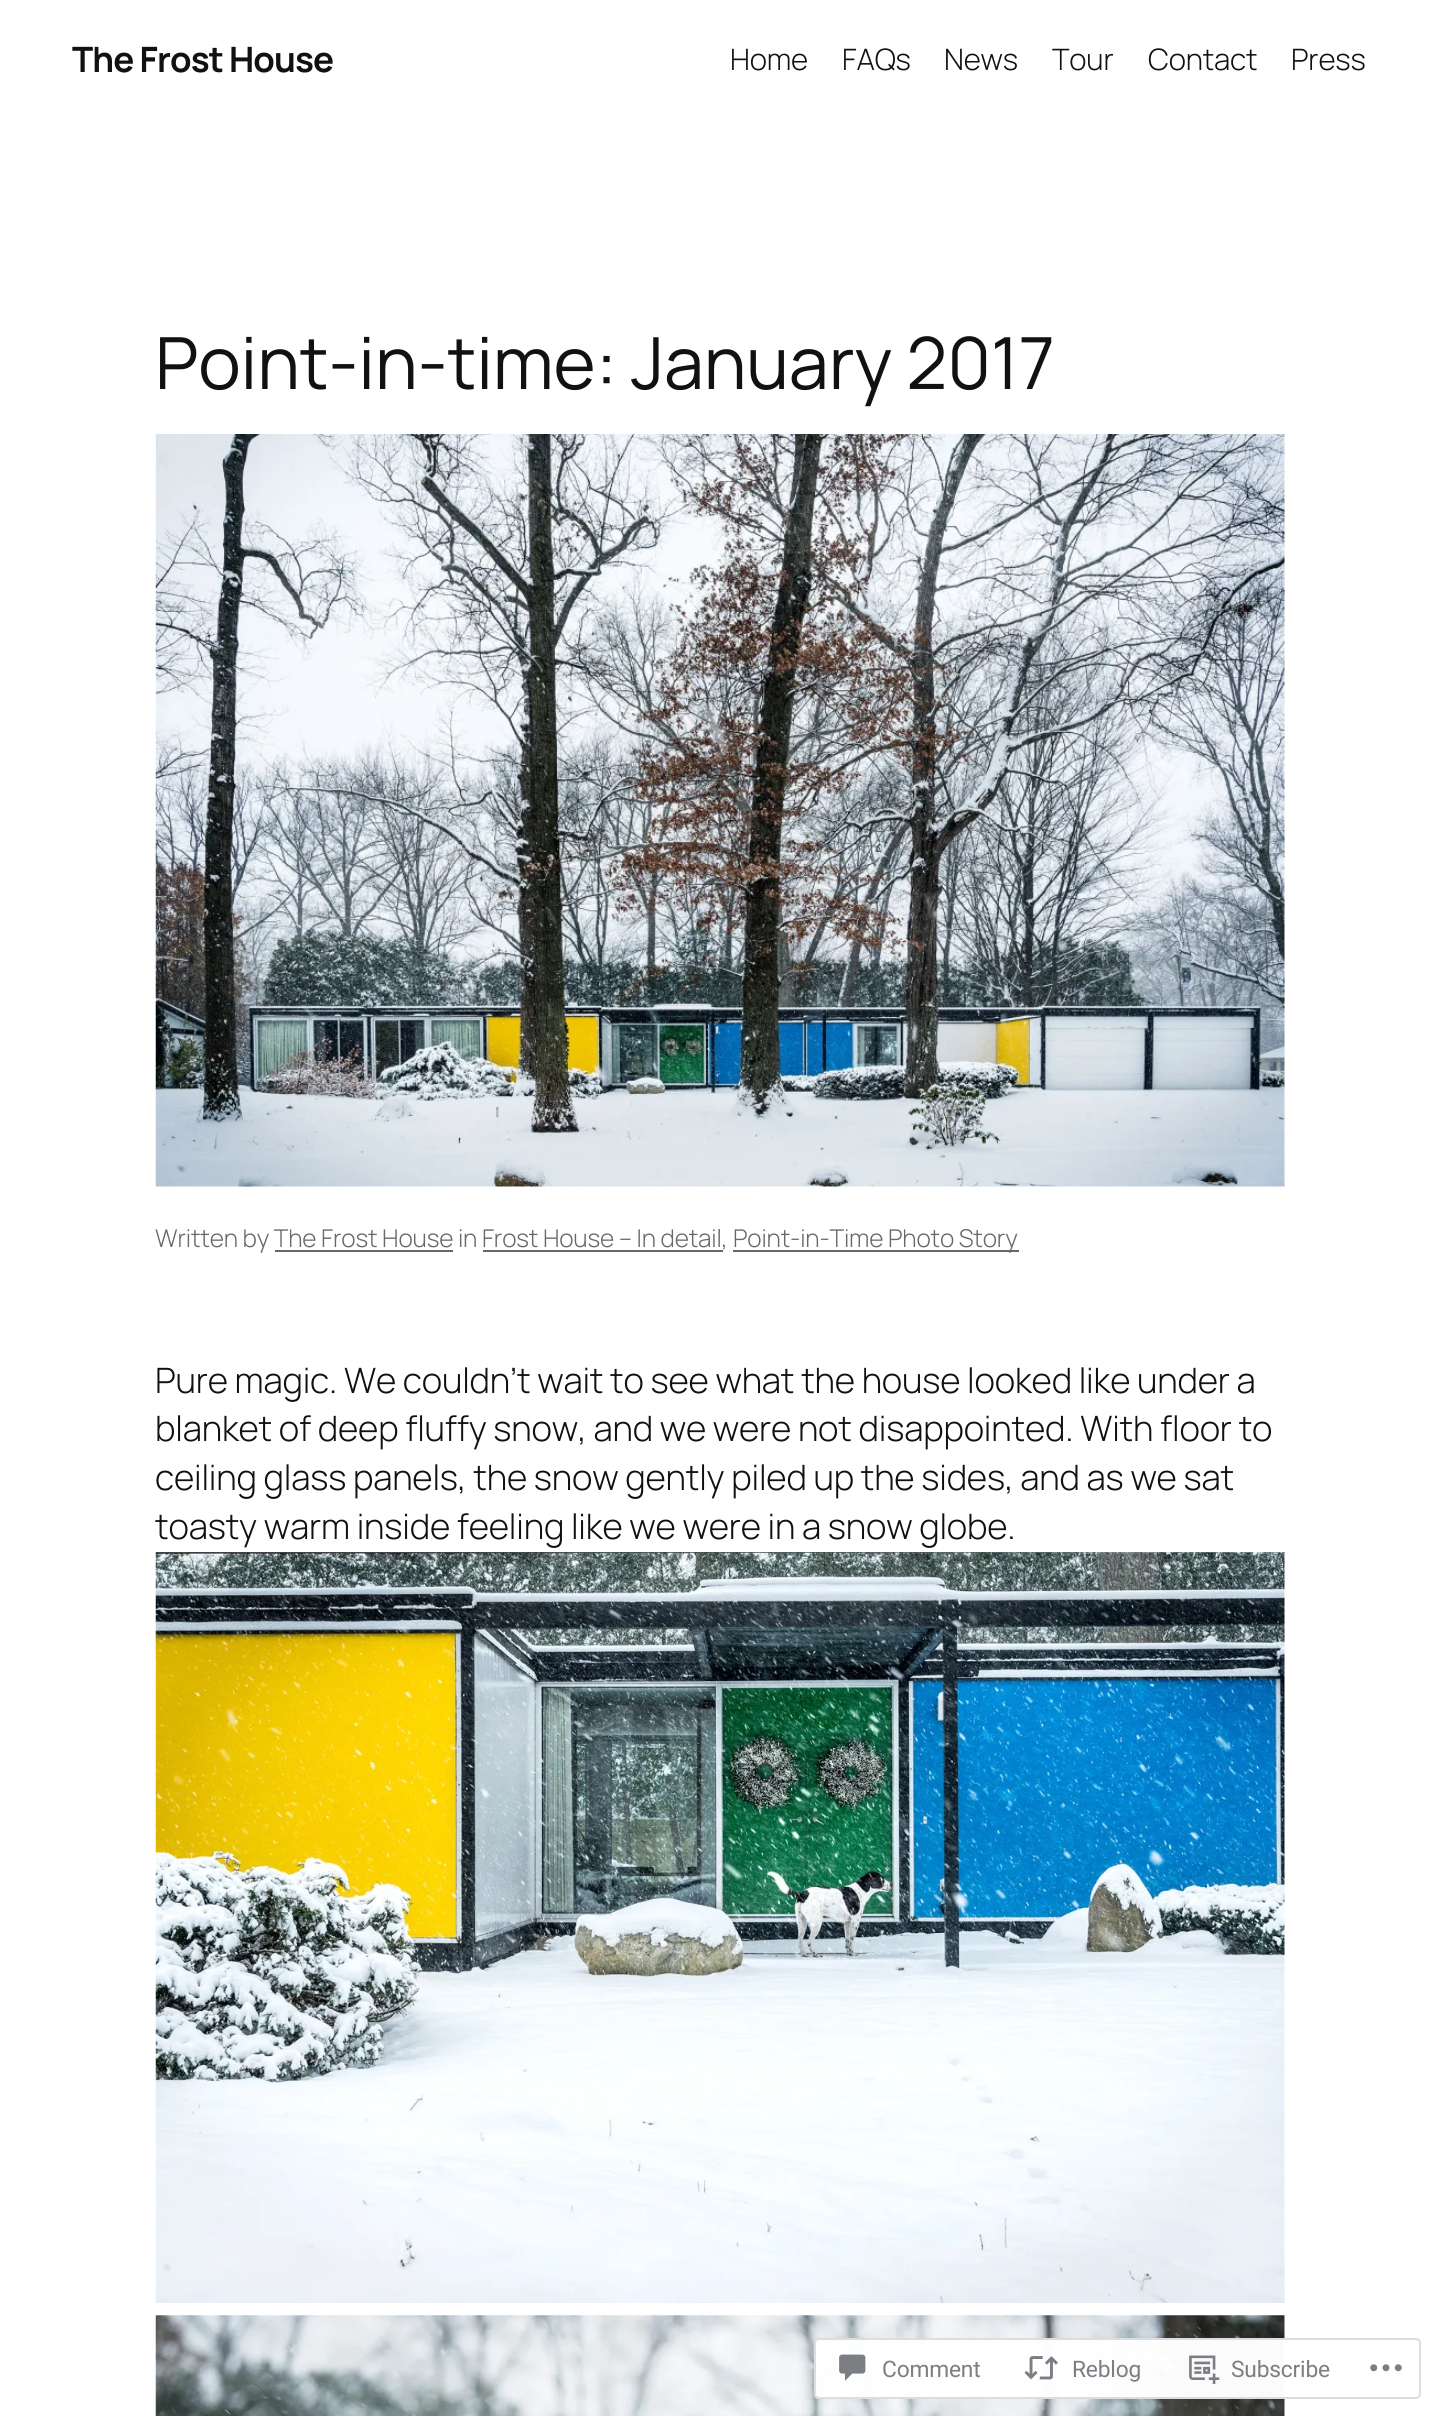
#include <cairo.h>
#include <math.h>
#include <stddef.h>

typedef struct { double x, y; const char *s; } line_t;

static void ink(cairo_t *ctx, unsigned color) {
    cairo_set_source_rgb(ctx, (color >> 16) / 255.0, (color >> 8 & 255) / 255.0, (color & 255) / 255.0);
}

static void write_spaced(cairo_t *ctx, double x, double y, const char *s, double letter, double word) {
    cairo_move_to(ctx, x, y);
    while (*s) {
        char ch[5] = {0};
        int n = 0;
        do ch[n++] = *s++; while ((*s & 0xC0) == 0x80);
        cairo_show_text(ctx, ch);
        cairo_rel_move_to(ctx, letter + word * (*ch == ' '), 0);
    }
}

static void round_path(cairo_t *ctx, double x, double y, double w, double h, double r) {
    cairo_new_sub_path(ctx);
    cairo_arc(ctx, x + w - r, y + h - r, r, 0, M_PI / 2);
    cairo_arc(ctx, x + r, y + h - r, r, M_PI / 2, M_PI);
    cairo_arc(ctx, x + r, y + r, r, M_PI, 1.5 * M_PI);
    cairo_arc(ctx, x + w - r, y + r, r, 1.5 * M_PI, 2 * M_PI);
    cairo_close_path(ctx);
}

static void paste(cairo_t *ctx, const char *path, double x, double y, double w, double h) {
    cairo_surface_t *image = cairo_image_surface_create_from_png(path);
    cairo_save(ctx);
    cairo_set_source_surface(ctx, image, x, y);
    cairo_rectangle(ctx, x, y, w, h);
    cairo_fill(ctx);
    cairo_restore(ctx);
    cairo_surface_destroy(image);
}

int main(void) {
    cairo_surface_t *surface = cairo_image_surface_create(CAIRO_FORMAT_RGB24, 1437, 2416);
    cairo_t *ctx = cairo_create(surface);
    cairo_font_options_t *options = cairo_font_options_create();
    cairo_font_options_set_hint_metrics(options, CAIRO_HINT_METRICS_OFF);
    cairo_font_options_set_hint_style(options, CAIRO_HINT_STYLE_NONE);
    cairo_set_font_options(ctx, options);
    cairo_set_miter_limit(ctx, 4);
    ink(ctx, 0xFFFFFF);
    cairo_paint(ctx);
    cairo_select_font_face(ctx, "Manrope", CAIRO_FONT_SLANT_NORMAL, CAIRO_FONT_WEIGHT_BOLD);
    cairo_set_font_size(ctx, 34.95);
    ink(ctx, 0x111111);
    write_spaced(ctx, 72, 72, "The Frost House", -0.9, 0);
    cairo_select_font_face(ctx, "Manrope Light", CAIRO_FONT_SLANT_NORMAL, CAIRO_FONT_WEIGHT_NORMAL);
    cairo_set_font_size(ctx, 29.5);
    {
        static const line_t items[] = {
            {730, 70, "Home"},
            {842, 70, "FAQs"},
            {944, 70, "News"},
            {1052, 70, "Tour"},
            {1148, 70, "Contact"},
            {1291, 70, "Press"},
        };
        for (size_t i = 0; i < sizeof items / sizeof *items; i++) {
            write_spaced(ctx, items[i].x, items[i].y, items[i].s, -0.18, 0);
        }
    }
    cairo_select_font_face(ctx, "Manrope", CAIRO_FONT_SLANT_NORMAL, CAIRO_FONT_WEIGHT_NORMAL);
    cairo_set_font_size(ctx, 71.9);
    write_spaced(ctx, 155, 389, "Point-in-time: January 2017", -0.18, 0);
    paste(ctx, "media/1.png", 155, 434, 1130, 753);
    cairo_select_font_face(ctx, "Manrope Light", CAIRO_FONT_SLANT_NORMAL, CAIRO_FONT_WEIGHT_NORMAL);
    cairo_set_font_size(ctx, 24.5);
    ink(ctx, 0x686868);
    write_spaced(ctx, 155, 1247, "Written by The Frost House in Frost House – In detail,", -0.18, 0);
    cairo_rectangle(ctx, 483, 1250, 240, 2);
    cairo_fill(ctx);
    cairo_rectangle(ctx, 733, 1250, 286, 2);
    cairo_fill(ctx);
    write_spaced(ctx, 733, 1247, "Point-in-Time Photo Story", -0.18, 0);
    cairo_rectangle(ctx, 275, 1250, 178, 2);
    cairo_fill(ctx);
    cairo_set_font_size(ctx, 34.95);
    ink(ctx, 0x111111);
    {
        static const line_t items[] = {
            {155, 1393, "Pure magic. We couldn’t wait to see what the house looked like under a"},
            {155, 1441, "blanket of deep fluffy snow, and we were not disappointed. With floor to"},
            {155, 1490, "ceiling glass panels, the snow gently piled up the sides, and as we sat"},
            {155, 1539, "toasty warm inside feeling like we were in a snow globe."},
        };
        for (size_t i = 0; i < sizeof items / sizeof *items; i++) {
            write_spaced(ctx, items[i].x, items[i].y, items[i].s, -0.18, 0);
        }
    }
    paste(ctx, "media/2.png", 155, 1552, 1130, 751);
    paste(ctx, "media/3.png", 155, 2315, 1130, 101);
    cairo_set_source_rgba(ctx, 1, 1, 1, 0.98);
    round_path(ctx, 814, 2338, 607, 61, 5);
    cairo_fill(ctx);
    round_path(ctx, 815, 2339, 605, 59, 4);
    cairo_set_source_rgba(ctx, 0.863, 0.863, 0.871, 0.98);
    cairo_stroke(ctx);
    paste(ctx, "media/4.png", 839, 2354, 27, 27);
    cairo_select_font_face(ctx, "Roboto", CAIRO_FONT_SLANT_NORMAL, CAIRO_FONT_WEIGHT_NORMAL);
    cairo_set_font_size(ctx, 22.75);
    ink(ctx, 0x7B7F84);
    write_spaced(ctx, 882, 2377, "Comment", -0.18, 0);
    paste(ctx, "media/5.png", 1024, 2356, 34, 24);
    write_spaced(ctx, 1072, 2377, "Reblog", -0.18, 0);
    paste(ctx, "media/6.png", 1189, 2355, 31, 29);
    write_spaced(ctx, 1231, 2377, "Subscribe", -0.18, 0);
    paste(ctx, "media/7.png", 1370, 2364, 32, 8);
    cairo_surface_write_to_png(surface, "image.png");
    cairo_font_options_destroy(options);
    cairo_destroy(ctx);
    cairo_surface_destroy(surface);
    return 0;
}
